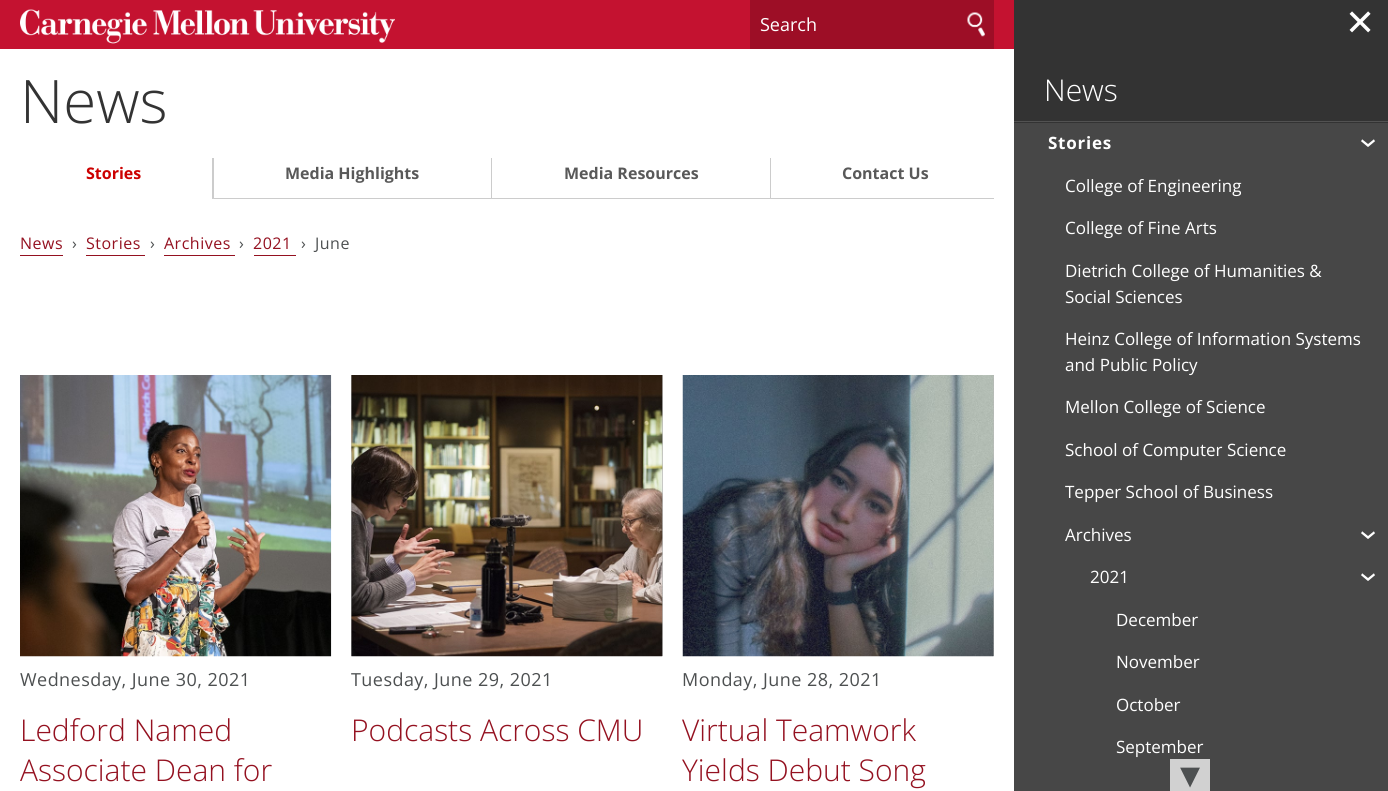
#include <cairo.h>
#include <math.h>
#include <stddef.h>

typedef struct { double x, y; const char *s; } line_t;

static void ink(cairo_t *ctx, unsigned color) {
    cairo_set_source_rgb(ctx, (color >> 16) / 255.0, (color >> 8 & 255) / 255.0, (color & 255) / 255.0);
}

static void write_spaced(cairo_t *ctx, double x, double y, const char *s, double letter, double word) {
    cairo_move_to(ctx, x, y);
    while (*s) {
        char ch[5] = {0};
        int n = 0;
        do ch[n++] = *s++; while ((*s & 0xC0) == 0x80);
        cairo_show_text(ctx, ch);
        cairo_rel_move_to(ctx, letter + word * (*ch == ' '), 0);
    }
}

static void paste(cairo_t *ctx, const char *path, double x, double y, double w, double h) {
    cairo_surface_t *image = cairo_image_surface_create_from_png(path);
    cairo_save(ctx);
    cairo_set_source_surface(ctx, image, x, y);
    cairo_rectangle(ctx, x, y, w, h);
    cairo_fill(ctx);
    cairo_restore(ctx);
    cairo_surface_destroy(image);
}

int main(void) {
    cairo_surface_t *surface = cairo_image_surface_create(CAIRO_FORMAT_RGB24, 1388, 791);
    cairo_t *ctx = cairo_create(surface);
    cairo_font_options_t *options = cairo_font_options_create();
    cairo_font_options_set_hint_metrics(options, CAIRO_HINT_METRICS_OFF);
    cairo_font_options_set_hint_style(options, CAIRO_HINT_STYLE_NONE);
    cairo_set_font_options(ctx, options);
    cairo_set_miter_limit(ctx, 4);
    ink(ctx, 0xFFFFFF);
    cairo_paint(ctx);
    ink(ctx, 0xC41230);
    cairo_rectangle(ctx, 0, 0, 1014, 49);
    cairo_fill(ctx);
    paste(ctx, "media/1.png", 20, 9, 375, 35);
    ink(ctx, 0x9D0E26);
    cairo_rectangle(ctx, 750, 0, 244, 49);
    cairo_fill(ctx);
    cairo_select_font_face(ctx, "Open Sans", CAIRO_FONT_SLANT_NORMAL, CAIRO_FONT_WEIGHT_NORMAL);
    cairo_set_font_size(ctx, 18);
    ink(ctx, 0xFFFFFF);
    cairo_move_to(ctx, 760, 31);
    cairo_show_text(ctx, "Search");
    paste(ctx, "media/2.png", 967, 12, 18, 25);
    ink(ctx, 0x333333);
    cairo_rectangle(ctx, 1014, 0, 374, 123);
    cairo_fill(ctx);
    cairo_select_font_face(ctx, "DejaVu Sans", CAIRO_FONT_SLANT_NORMAL, CAIRO_FONT_WEIGHT_NORMAL);
    cairo_set_font_size(ctx, 36);
    ink(ctx, 0xFFFFFF);
    cairo_move_to(ctx, 1345, 35);
    cairo_show_text(ctx, "✕");
    cairo_select_font_face(ctx, "Open Sans Light", CAIRO_FONT_SLANT_NORMAL, CAIRO_FONT_WEIGHT_NORMAL);
    cairo_set_font_size(ctx, 60);
    ink(ctx, 0x333333);
    cairo_move_to(ctx, 20, 123);
    cairo_show_text(ctx, "News");
    cairo_select_font_face(ctx, "Open Sans", CAIRO_FONT_SLANT_NORMAL, CAIRO_FONT_WEIGHT_BOLD);
    cairo_set_font_size(ctx, 16);
    ink(ctx, 0xCC0000);
    cairo_move_to(ctx, 86, 179);
    cairo_show_text(ctx, "Stories");
    ink(ctx, 0xCCCCCC);
    cairo_new_path(ctx);
    cairo_move_to(ctx, 491, 199);
    cairo_line_to(ctx, 212, 199);
    cairo_line_to(ctx, 214, 198);
    cairo_line_to(ctx, 491, 198);
    cairo_close_path(ctx);
    cairo_fill(ctx);
    cairo_set_source_rgba(ctx, 0, 0, 0, 0.2);
    cairo_new_path(ctx);
    cairo_move_to(ctx, 212, 199);
    cairo_line_to(ctx, 212, 158);
    cairo_line_to(ctx, 214, 158);
    cairo_line_to(ctx, 214, 198);
    cairo_close_path(ctx);
    cairo_fill(ctx);
    ink(ctx, 0x595959);
    cairo_move_to(ctx, 285, 179);
    cairo_show_text(ctx, "Media Highlights");
    ink(ctx, 0xCCCCCC);
    cairo_new_path(ctx);
    cairo_move_to(ctx, 770, 199);
    cairo_line_to(ctx, 491, 199);
    cairo_line_to(ctx, 492, 198);
    cairo_line_to(ctx, 770, 198);
    cairo_close_path(ctx);
    cairo_fill(ctx);
    cairo_set_source_rgba(ctx, 0, 0, 0, 0.2);
    cairo_new_path(ctx);
    cairo_move_to(ctx, 491, 199);
    cairo_line_to(ctx, 491, 158);
    cairo_line_to(ctx, 492, 158);
    cairo_line_to(ctx, 492, 198);
    cairo_close_path(ctx);
    cairo_fill(ctx);
    ink(ctx, 0x595959);
    cairo_move_to(ctx, 564, 179);
    cairo_show_text(ctx, "Media Resources");
    ink(ctx, 0xCCCCCC);
    cairo_new_path(ctx);
    cairo_move_to(ctx, 994, 199);
    cairo_line_to(ctx, 770, 199);
    cairo_line_to(ctx, 771, 198);
    cairo_line_to(ctx, 994, 198);
    cairo_close_path(ctx);
    cairo_fill(ctx);
    cairo_set_source_rgba(ctx, 0, 0, 0, 0.2);
    cairo_new_path(ctx);
    cairo_move_to(ctx, 770, 199);
    cairo_line_to(ctx, 770, 158);
    cairo_line_to(ctx, 771, 158);
    cairo_line_to(ctx, 771, 198);
    cairo_close_path(ctx);
    cairo_fill(ctx);
    ink(ctx, 0x595959);
    cairo_move_to(ctx, 842, 179);
    cairo_show_text(ctx, "Contact Us");
    cairo_select_font_face(ctx, "Open Sans", CAIRO_FONT_SLANT_NORMAL, CAIRO_FONT_WEIGHT_NORMAL);
    ink(ctx, 0x941120);
    write_spaced(ctx, 20, 249, "News", 0.5, 0);
    cairo_rectangle(ctx, 20, 255, 43, 1);
    cairo_fill(ctx);
    ink(ctx, 0x4D5051);
    write_spaced(ctx, 72, 249, "›", 0.5, 0);
    ink(ctx, 0x941120);
    write_spaced(ctx, 86, 249, "Stories", 0.5, 0);
    cairo_rectangle(ctx, 86, 255, 59, 1);
    cairo_fill(ctx);
    ink(ctx, 0x4D5051);
    write_spaced(ctx, 150, 249, "›", 0.5, 0);
    ink(ctx, 0x941120);
    write_spaced(ctx, 164, 249, "Archives", 0.5, 0);
    cairo_rectangle(ctx, 164, 255, 71, 1);
    cairo_fill(ctx);
    ink(ctx, 0x4D5051);
    write_spaced(ctx, 239, 249, "›", 0.5, 0);
    ink(ctx, 0x941120);
    write_spaced(ctx, 253, 249, "2021", 0.5, 0);
    cairo_rectangle(ctx, 254, 255, 42, 1);
    cairo_fill(ctx);
    ink(ctx, 0x4D5051);
    write_spaced(ctx, 301, 249, "›", 0.5, 0);
    write_spaced(ctx, 315, 249, "June", 0.5, 0);
    paste(ctx, "media/3.png", 20, 375, 312, 282);
    cairo_set_font_size(ctx, 18);
    write_spaced(ctx, 20, 686, "Wednesday, June 30, 2021", 0.45, 0);
    cairo_select_font_face(ctx, "Open Sans Light", CAIRO_FONT_SLANT_NORMAL, CAIRO_FONT_WEIGHT_NORMAL);
    cairo_set_font_size(ctx, 30);
    ink(ctx, 0x941120);
    cairo_move_to(ctx, 20, 741);
    cairo_show_text(ctx, "Ledford Named");
    cairo_move_to(ctx, 20, 781);
    cairo_show_text(ctx, "Associate Dean for");
    ink(ctx, 0xBBBBBB);
    cairo_rectangle(ctx, 351, 375, 312, 281);
    cairo_fill(ctx);
    paste(ctx, "media/4.png", 351, 375, 312, 282);
    cairo_select_font_face(ctx, "Open Sans", CAIRO_FONT_SLANT_NORMAL, CAIRO_FONT_WEIGHT_NORMAL);
    cairo_set_font_size(ctx, 18);
    ink(ctx, 0x4D5051);
    write_spaced(ctx, 351, 686, "Tuesday, June 29, 2021", 0.45, 0);
    cairo_select_font_face(ctx, "Open Sans Light", CAIRO_FONT_SLANT_NORMAL, CAIRO_FONT_WEIGHT_NORMAL);
    cairo_set_font_size(ctx, 30);
    ink(ctx, 0x941120);
    cairo_move_to(ctx, 351, 741);
    cairo_show_text(ctx, "Podcasts Across CMU");
    ink(ctx, 0xBBBBBB);
    cairo_rectangle(ctx, 993, 375, 1, 281);
    cairo_fill(ctx);
    paste(ctx, "media/5.png", 682, 375, 312, 282);
    cairo_select_font_face(ctx, "Open Sans", CAIRO_FONT_SLANT_NORMAL, CAIRO_FONT_WEIGHT_NORMAL);
    cairo_set_font_size(ctx, 18);
    ink(ctx, 0x4D5051);
    write_spaced(ctx, 682, 686, "Monday, June 28, 2021", 0.45, 0);
    cairo_select_font_face(ctx, "Open Sans Light", CAIRO_FONT_SLANT_NORMAL, CAIRO_FONT_WEIGHT_NORMAL);
    cairo_set_font_size(ctx, 30);
    ink(ctx, 0x941120);
    cairo_move_to(ctx, 682, 741);
    cairo_show_text(ctx, "Virtual Teamwork");
    cairo_move_to(ctx, 682, 781);
    cairo_show_text(ctx, "Yields Debut Song");
    ink(ctx, 0xFFFFFF);
    cairo_move_to(ctx, 1044, 101);
    cairo_show_text(ctx, "News");
    ink(ctx, 0x525252);
    cairo_rectangle(ctx, 1014, 121, 374, 1);
    cairo_fill(ctx);
    ink(ctx, 0x474747);
    cairo_rectangle(ctx, 1014, 123, 374, 668);
    cairo_fill(ctx);
    cairo_select_font_face(ctx, "Open Sans", CAIRO_FONT_SLANT_NORMAL, CAIRO_FONT_WEIGHT_BOLD);
    cairo_set_font_size(ctx, 17);
    ink(ctx, 0xFFFFFF);
    write_spaced(ctx, 1048, 149, "Stories", 0.75, 0);
    cairo_select_font_face(ctx, "Open Sans", CAIRO_FONT_SLANT_NORMAL, CAIRO_FONT_WEIGHT_NORMAL);
    cairo_set_font_size(ctx, 34);
    cairo_save(ctx);
    cairo_translate(ctx, 1359, 138);
    cairo_rotate(ctx, 90 * M_PI / 180);
    write_spaced(ctx, 0, 0, "›", 2, 0);
    cairo_restore(ctx);
    cairo_set_font_size(ctx, 17);
    {
        static const line_t items[] = {
            {1065, 192, "College of Engineering"},
            {1065, 234, "College of Fine Arts"},
            {1065, 277, "Dietrich College of Humanities &"},
            {1065, 303, "Social Sciences"},
            {1065, 345, "Heinz College of Information Systems"},
            {1065, 371, "and Public Policy"},
            {1065, 413, "Mellon College of Science"},
            {1065, 456, "School of Computer Science"},
            {1065, 498, "Tepper School of Business"},
            {1065, 541, "Archives"},
        };
        for (size_t i = 0; i < sizeof items / sizeof *items; i++) {
            cairo_move_to(ctx, items[i].x, items[i].y);
            cairo_show_text(ctx, items[i].s);
        }
    }
    cairo_set_font_size(ctx, 34);
    cairo_save(ctx);
    cairo_translate(ctx, 1359, 530);
    cairo_rotate(ctx, 90 * M_PI / 180);
    cairo_move_to(ctx, 0, 0);
    cairo_show_text(ctx, "›");
    cairo_restore(ctx);
    cairo_set_font_size(ctx, 17);
    cairo_move_to(ctx, 1090, 583);
    cairo_show_text(ctx, "2021");
    cairo_set_font_size(ctx, 34);
    cairo_save(ctx);
    cairo_translate(ctx, 1359, 572);
    cairo_rotate(ctx, 90 * M_PI / 180);
    cairo_move_to(ctx, 0, 0);
    cairo_show_text(ctx, "›");
    cairo_restore(ctx);
    cairo_set_font_size(ctx, 17);
    {
        static const line_t items[] = {
            {1116, 626, "December"},
            {1116, 668, "November"},
            {1116, 711, "October"},
            {1116, 753, "September"},
        };
        for (size_t i = 0; i < sizeof items / sizeof *items; i++) {
            cairo_move_to(ctx, items[i].x, items[i].y);
            cairo_show_text(ctx, items[i].s);
        }
    }
    cairo_set_source_rgba(ctx, 1, 1, 1, 0.75);
    cairo_rectangle(ctx, 1170, 759, 40, 32);
    cairo_fill(ctx);
    cairo_select_font_face(ctx, "DejaVu Sans", CAIRO_FONT_SLANT_NORMAL, CAIRO_FONT_WEIGHT_NORMAL);
    cairo_set_font_size(ctx, 40);
    ink(ctx, 0x4D5051);
    cairo_move_to(ctx, 1180, 788);
    cairo_show_text(ctx, "▾");
    cairo_surface_write_to_png(surface, "image.png");
    cairo_font_options_destroy(options);
    cairo_destroy(ctx);
    cairo_surface_destroy(surface);
    return 0;
}
